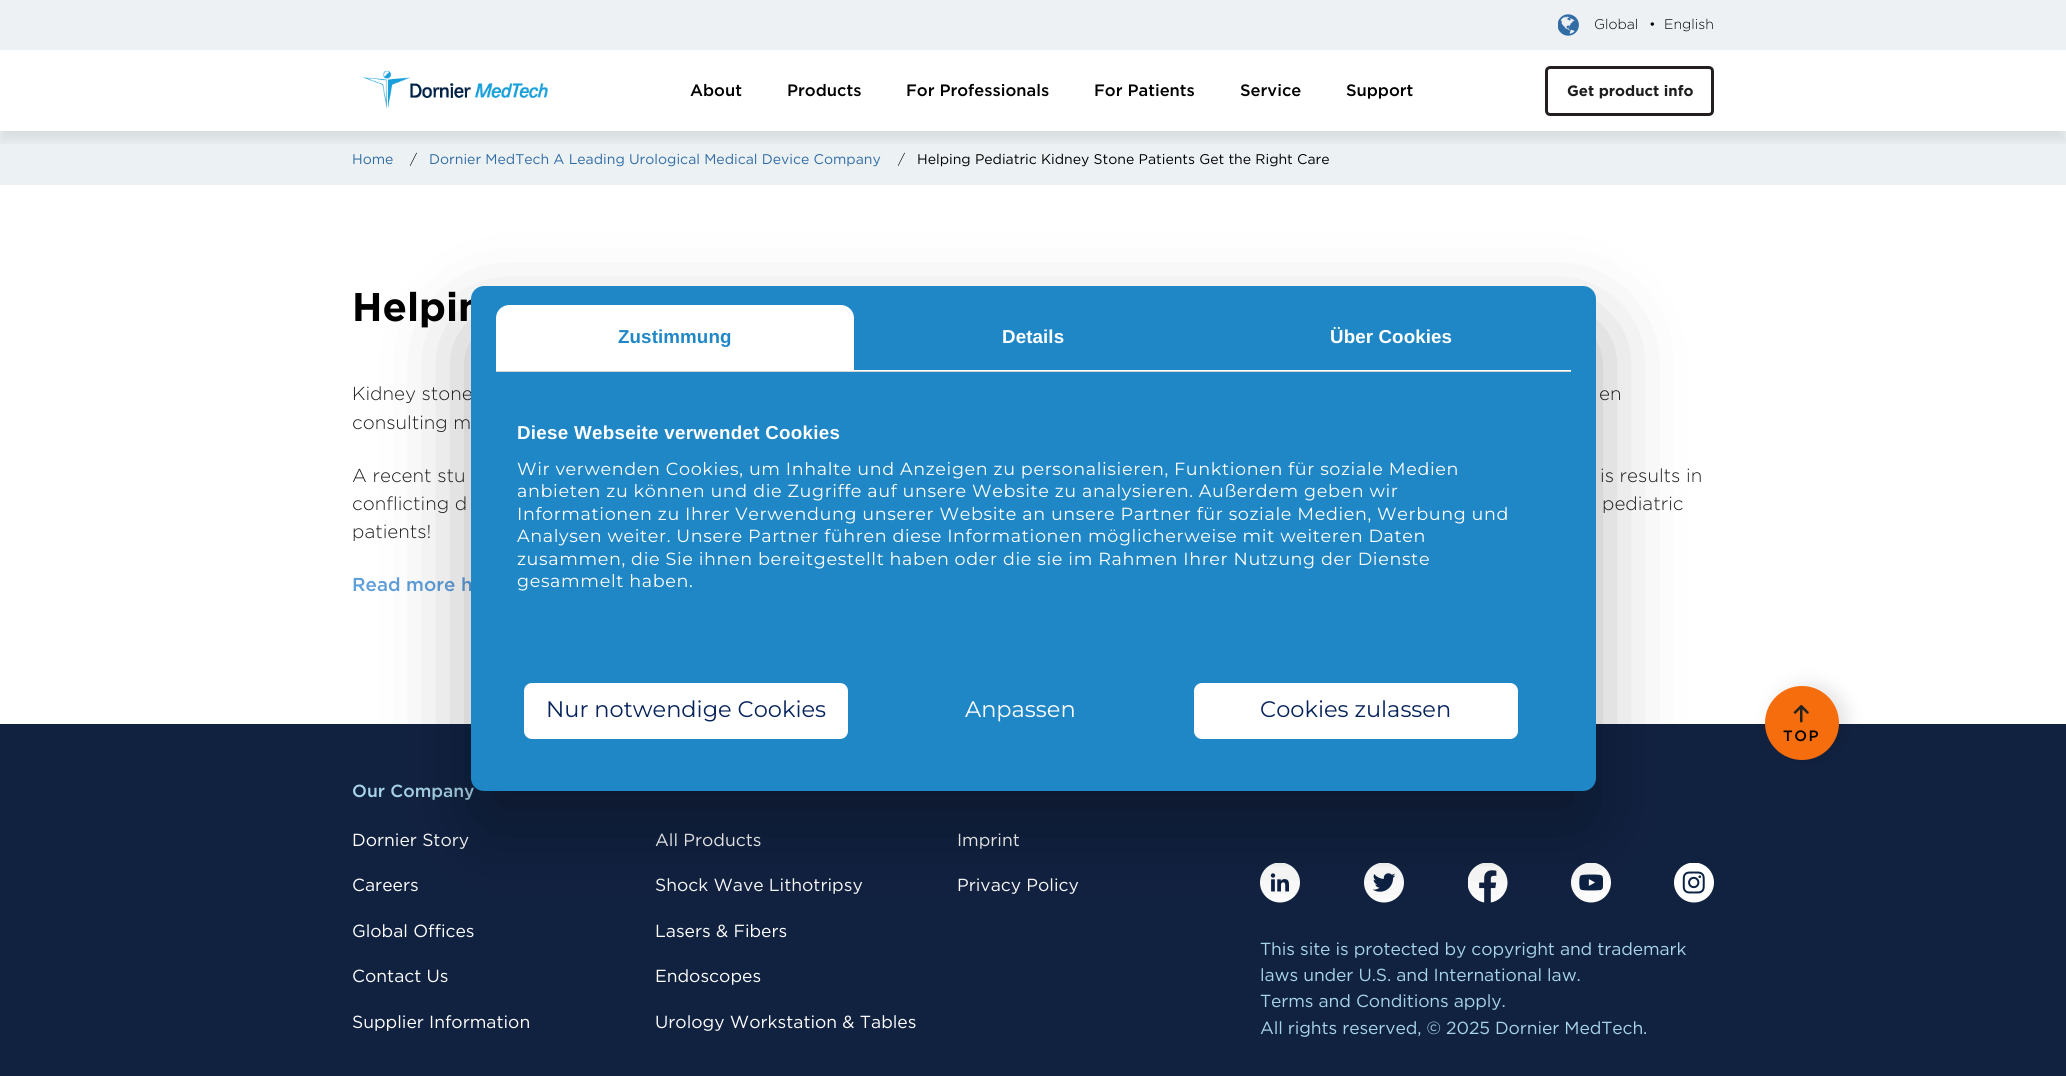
#include <cairo.h>
#include <math.h>
#include <stddef.h>

typedef struct { double x, y; const char *s; } line_t;

static void ink(cairo_t *ctx, unsigned color) {
    cairo_set_source_rgb(ctx, (color >> 16) / 255.0, (color >> 8 & 255) / 255.0, (color & 255) / 255.0);
}

static void write_spaced(cairo_t *ctx, double x, double y, const char *s, double letter, double word) {
    cairo_move_to(ctx, x, y);
    while (*s) {
        char ch[5] = {0};
        int n = 0;
        do ch[n++] = *s++; while ((*s & 0xC0) == 0x80);
        cairo_show_text(ctx, ch);
        cairo_rel_move_to(ctx, letter + word * (*ch == ' '), 0);
    }
}

static void round_path(cairo_t *ctx, double x, double y, double w, double h, double r) {
    cairo_new_sub_path(ctx);
    cairo_arc(ctx, x + w - r, y + h - r, r, 0, M_PI / 2);
    cairo_arc(ctx, x + r, y + h - r, r, M_PI / 2, M_PI);
    cairo_arc(ctx, x + r, y + r, r, M_PI, 1.5 * M_PI);
    cairo_arc(ctx, x + w - r, y + r, r, 1.5 * M_PI, 2 * M_PI);
    cairo_close_path(ctx);
}

static void blur_box(cairo_t *ctx, double x, double y, double w, double h, double r, double blur, double alpha) {
    cairo_push_group_with_content(ctx, CAIRO_CONTENT_ALPHA);
    cairo_set_operator(ctx, CAIRO_OPERATOR_SOURCE);
    for (int i = 15; i >= -15 && fmin(w, h) + blur * i / 3 > 0; i -= 2) {
        double e = blur * i / 6;
        cairo_set_source_rgba(ctx, 0, 0, 0, alpha * erfc((i - 1) / 8.5) / 2);
        round_path(ctx, x - e, y - e, w + 2 * e, h + 2 * e, fmax(0, fmin(r + e + blur * .6, fmin(w, h) / 2 + e)));
        cairo_fill(ctx);
    }
    cairo_pattern_t *soft = cairo_pop_group(ctx);
    cairo_mask(ctx, soft);
    cairo_pattern_destroy(soft);
}

static void paste(cairo_t *ctx, const char *path, double x, double y, double w, double h) {
    cairo_surface_t *image = cairo_image_surface_create_from_png(path);
    cairo_save(ctx);
    cairo_set_source_surface(ctx, image, x, y);
    cairo_rectangle(ctx, x, y, w, h);
    cairo_fill(ctx);
    cairo_restore(ctx);
    cairo_surface_destroy(image);
}

int main(void) {
    cairo_surface_t *surface = cairo_image_surface_create(CAIRO_FORMAT_RGB24, 2066, 1076);
    cairo_t *ctx = cairo_create(surface);
    cairo_font_options_t *options = cairo_font_options_create();
    cairo_font_options_set_hint_metrics(options, CAIRO_HINT_METRICS_OFF);
    cairo_font_options_set_hint_style(options, CAIRO_HINT_STYLE_NONE);
    cairo_set_font_options(ctx, options);
    cairo_set_miter_limit(ctx, 4);
    ink(ctx, 0xFFFFFF);
    cairo_paint(ctx);
    ink(ctx, 0xECF1F3);
    cairo_rectangle(ctx, 0, 131, 2066, 54);
    cairo_fill(ctx);
    cairo_save(ctx);
    cairo_rectangle(ctx, 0, 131, 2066, 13);
    cairo_clip(ctx);
    ink(ctx, 0x000000);
    blur_box(ctx, 0, 10, 2066, 131, 0, 5, 0.08);
    cairo_restore(ctx);
    ink(ctx, 0xEDF1F3);
    cairo_rectangle(ctx, 0, 0, 2066, 50);
    cairo_fill(ctx);
    paste(ctx, "media/1.png", 1558, 14, 21, 22);
    cairo_select_font_face(ctx, "Gotham Light", CAIRO_FONT_SLANT_NORMAL, CAIRO_FONT_WEIGHT_NORMAL);
    cairo_set_font_size(ctx, 14.05);
    ink(ctx, 0x000000);
    {
        static const line_t items[] = {
            {1594, 29, "Global"},
            {1649, 29, "•"},
            {1664, 29, "English"},
        };
        for (size_t i = 0; i < sizeof items / sizeof *items; i++) {
            cairo_move_to(ctx, items[i].x, items[i].y);
            cairo_show_text(ctx, items[i].s);
        }
    }
    paste(ctx, "media/2.png", 363, 70, 185, 39);
    cairo_select_font_face(ctx, "Gotham Medium", CAIRO_FONT_SLANT_NORMAL, CAIRO_FONT_WEIGHT_NORMAL);
    cairo_set_font_size(ctx, 16.5);
    {
        static const line_t items[] = {
            {690, 96, "About"},
            {787, 96, "Products"},
            {906, 96, "For Professionals"},
            {1094, 96, "For Patients"},
            {1240, 96, "Service"},
            {1346, 96, "Support"},
        };
        for (size_t i = 0; i < sizeof items / sizeof *items; i++) {
            cairo_move_to(ctx, items[i].x, items[i].y);
            cairo_show_text(ctx, items[i].s);
        }
    }
    round_path(ctx, 1546.5, 67.5, 166, 47, 3.5);
    ink(ctx, 0x231F20);
    cairo_set_line_width(ctx, 3);
    cairo_stroke(ctx);
    cairo_select_font_face(ctx, "Gotham", CAIRO_FONT_SLANT_NORMAL, CAIRO_FONT_WEIGHT_BOLD);
    cairo_set_font_size(ctx, 15);
    ink(ctx, 0x1E1E1E);
    cairo_move_to(ctx, 1567, 96);
    cairo_show_text(ctx, "Get product info");
    cairo_select_font_face(ctx, "Gotham", CAIRO_FONT_SLANT_NORMAL, CAIRO_FONT_WEIGHT_NORMAL);
    cairo_set_font_size(ctx, 14.05);
    ink(ctx, 0x316CA5);
    cairo_move_to(ctx, 352, 164);
    cairo_show_text(ctx, "Home");
    cairo_select_font_face(ctx, "Gotham Light", CAIRO_FONT_SLANT_NORMAL, CAIRO_FONT_WEIGHT_NORMAL);
    ink(ctx, 0x000000);
    cairo_move_to(ctx, 410, 164);
    cairo_show_text(ctx, "/");
    cairo_select_font_face(ctx, "Gotham", CAIRO_FONT_SLANT_NORMAL, CAIRO_FONT_WEIGHT_NORMAL);
    ink(ctx, 0x316CA5);
    cairo_move_to(ctx, 429, 164);
    cairo_show_text(ctx, "Dornier MedTech A Leading Urological Medical Device Company");
    cairo_select_font_face(ctx, "Gotham Light", CAIRO_FONT_SLANT_NORMAL, CAIRO_FONT_WEIGHT_NORMAL);
    ink(ctx, 0x000000);
    cairo_move_to(ctx, 898, 164);
    cairo_show_text(ctx, "/");
    cairo_select_font_face(ctx, "Gotham", CAIRO_FONT_SLANT_NORMAL, CAIRO_FONT_WEIGHT_NORMAL);
    cairo_move_to(ctx, 917, 164);
    cairo_show_text(ctx, "Helping Pediatric Kidney Stone Patients Get the Right Care");
    cairo_select_font_face(ctx, "Gotham", CAIRO_FONT_SLANT_NORMAL, CAIRO_FONT_WEIGHT_BOLD);
    cairo_set_font_size(ctx, 40);
    cairo_move_to(ctx, 352, 321);
    cairo_show_text(ctx, "Helpin");
    cairo_select_font_face(ctx, "Gotham Light", CAIRO_FONT_SLANT_NORMAL, CAIRO_FONT_WEIGHT_NORMAL);
    cairo_set_font_size(ctx, 18.75);
    ink(ctx, 0x1E1E1E);
    {
        static const line_t items[] = {
            {352, 400, "Kidney stone"},
            {1599, 400, "en"},
            {352, 429, "consulting m"},
            {352, 482, "A recent stu"},
            {1600, 482, "is results in"},
            {352, 510, "conflicting d"},
            {1602, 510, "pediatric"},
            {352, 538, "patients!"},
        };
        for (size_t i = 0; i < sizeof items / sizeof *items; i++) {
            cairo_move_to(ctx, items[i].x, items[i].y);
            cairo_show_text(ctx, items[i].s);
        }
    }
    cairo_select_font_face(ctx, "Gotham Medium", CAIRO_FONT_SLANT_NORMAL, CAIRO_FONT_WEIGHT_NORMAL);
    ink(ctx, 0x5E9EDA);
    cairo_move_to(ctx, 352, 591);
    cairo_show_text(ctx, "Read more h");
    ink(ctx, 0x112241);
    cairo_rectangle(ctx, 0, 724, 2066, 352);
    cairo_fill(ctx);
    ink(ctx, 0x000000);
    blur_box(ctx, 1773, 686, 73, 74, 36.5, 10, 0.12);
    ink(ctx, 0xF56D0D);
    cairo_arc(ctx, 1802, 723, 37, 0, 2 * M_PI);
    cairo_fill(ctx);
    paste(ctx, "media/3.png", 1793, 705, 16, 18);
    cairo_set_font_size(ctx, 15);
    ink(ctx, 0x000000);
    write_spaced(ctx, 1783, 741, "TOP", 1.5, 0);
    cairo_set_font_size(ctx, 17.5);
    ink(ctx, 0xA8D4E7);
    cairo_move_to(ctx, 352, 797);
    cairo_show_text(ctx, "Our Company");
    cairo_select_font_face(ctx, "Gotham", CAIRO_FONT_SLANT_NORMAL, CAIRO_FONT_WEIGHT_NORMAL);
    ink(ctx, 0xFFFFFF);
    {
        static const line_t items[] = {
            {352, 846, "Dornier Story"},
            {352, 891, "Careers"},
            {352, 937, "Global Offices"},
            {352, 982, "Contact Us"},
            {352, 1028, "Supplier Information"},
            {655, 846, "All Products"},
            {655, 891, "Shock Wave Lithotripsy"},
            {655, 937, "Lasers & Fibers"},
            {655, 982, "Endoscopes"},
            {655, 1028, "Urology Workstation & Tables"},
            {957, 846, "Imprint"},
            {957, 891, "Privacy Policy"},
        };
        for (size_t i = 0; i < sizeof items / sizeof *items; i++) {
            cairo_move_to(ctx, items[i].x, items[i].y);
            cairo_show_text(ctx, items[i].s);
        }
    }
    paste(ctx, "media/4.png", 1260, 863, 40, 40);
    paste(ctx, "media/5.png", 1364, 863, 40, 40);
    paste(ctx, "media/6.png", 1468, 863, 40, 40);
    paste(ctx, "media/7.png", 1571, 863, 40, 40);
    paste(ctx, "media/8.png", 1674, 863, 40, 40);
    ink(ctx, 0xA8D4E7);
    {
        static const line_t items[] = {
            {1260, 955, "This site is protected by copyright and trademark"},
            {1260, 981, "laws under U.S. and International law."},
            {1260, 1007, "Terms and Conditions apply."},
            {1260, 1034, "All rights reserved, © 2025 Dornier MedTech."},
        };
        for (size_t i = 0; i < sizeof items / sizeof *items; i++) {
            write_spaced(ctx, items[i].x, items[i].y, items[i].s, -0.1, 0);
        }
    }
    ink(ctx, 0x000000);
    blur_box(ctx, 471, 326, 1125, 505, 13, 42.5, 0.3);
    ink(ctx, 0x2087C6);
    round_path(ctx, 471, 286, 1125, 505, 13);
    cairo_fill(ctx);
    ink(ctx, 0xD6D6D6);
    cairo_rectangle(ctx, 496, 371, 1075, 1);
    cairo_fill(ctx);
    ink(ctx, 0xFFFFFF);
    cairo_new_path(ctx);
    cairo_move_to(ctx, 509, 305);
    cairo_line_to(ctx, 841, 305);
    cairo_curve_to(ctx, 848, 305, 854, 311, 854, 318);
    cairo_line_to(ctx, 854, 371);
    cairo_line_to(ctx, 496, 371);
    cairo_line_to(ctx, 496, 318);
    cairo_curve_to(ctx, 496, 311, 502, 305, 509, 305);
    cairo_close_path(ctx);
    cairo_fill(ctx);
    cairo_select_font_face(ctx, "Liberation Sans", CAIRO_FONT_SLANT_NORMAL, CAIRO_FONT_WEIGHT_BOLD);
    cairo_set_font_size(ctx, 18.75);
    ink(ctx, 0x2087C6);
    write_spaced(ctx, 618, 343, "Zustimmung", 0.1, 0);
    ink(ctx, 0xFFFFFF);
    cairo_rectangle(ctx, 854, 370, 717, 1);
    cairo_fill(ctx);
    write_spaced(ctx, 1002, 343, "Details", 0.1, 0);
    write_spaced(ctx, 1330, 343, "Über Cookies", 0.1, 0);
    write_spaced(ctx, 517, 439, "Diese Webseite verwendet Cookies", 0.3, 0);
    cairo_select_font_face(ctx, "Montserrat", CAIRO_FONT_SLANT_NORMAL, CAIRO_FONT_WEIGHT_NORMAL);
    cairo_set_font_size(ctx, 17.58);
    {
        static const line_t items[] = {
            {517, 475, "Wir verwenden Cookies, um Inhalte und Anzeigen zu personalisieren, Funktionen für soziale Medien"},
            {517, 497, "anbieten zu können und die Zugriffe auf unsere Website zu analysieren. Außerdem geben wir"},
            {517, 520, "Informationen zu Ihrer Verwendung unserer Website an unsere Partner für soziale Medien, Werbung und"},
            {517, 542, "Analysen weiter. Unsere Partner führen diese Informationen möglicherweise mit weiteren Daten"},
            {517, 565, "zusammen, die Sie ihnen bereitgestellt haben oder die sie im Rahmen Ihrer Nutzung der Dienste"},
            {517, 587, "gesammelt haben."},
        };
        for (size_t i = 0; i < sizeof items / sizeof *items; i++) {
            write_spaced(ctx, items[i].x, items[i].y, items[i].s, 0.62, 0);
        }
    }
    round_path(ctx, 524, 683, 324, 56, 8);
    cairo_fill(ctx);
    cairo_set_font_size(ctx, 22.5);
    ink(ctx, 0x07235C);
    cairo_move_to(ctx, 546, 717);
    cairo_show_text(ctx, "Nur notwendige Cookies");
    ink(ctx, 0xFFFFFF);
    cairo_move_to(ctx, 965, 717);
    cairo_show_text(ctx, "Anpassen");
    round_path(ctx, 1194, 683, 324, 56, 8);
    cairo_fill(ctx);
    ink(ctx, 0x07235C);
    cairo_move_to(ctx, 1260, 717);
    cairo_show_text(ctx, "Cookies zulassen");
    cairo_surface_write_to_png(surface, "image.png");
    cairo_font_options_destroy(options);
    cairo_destroy(ctx);
    cairo_surface_destroy(surface);
    return 0;
}
